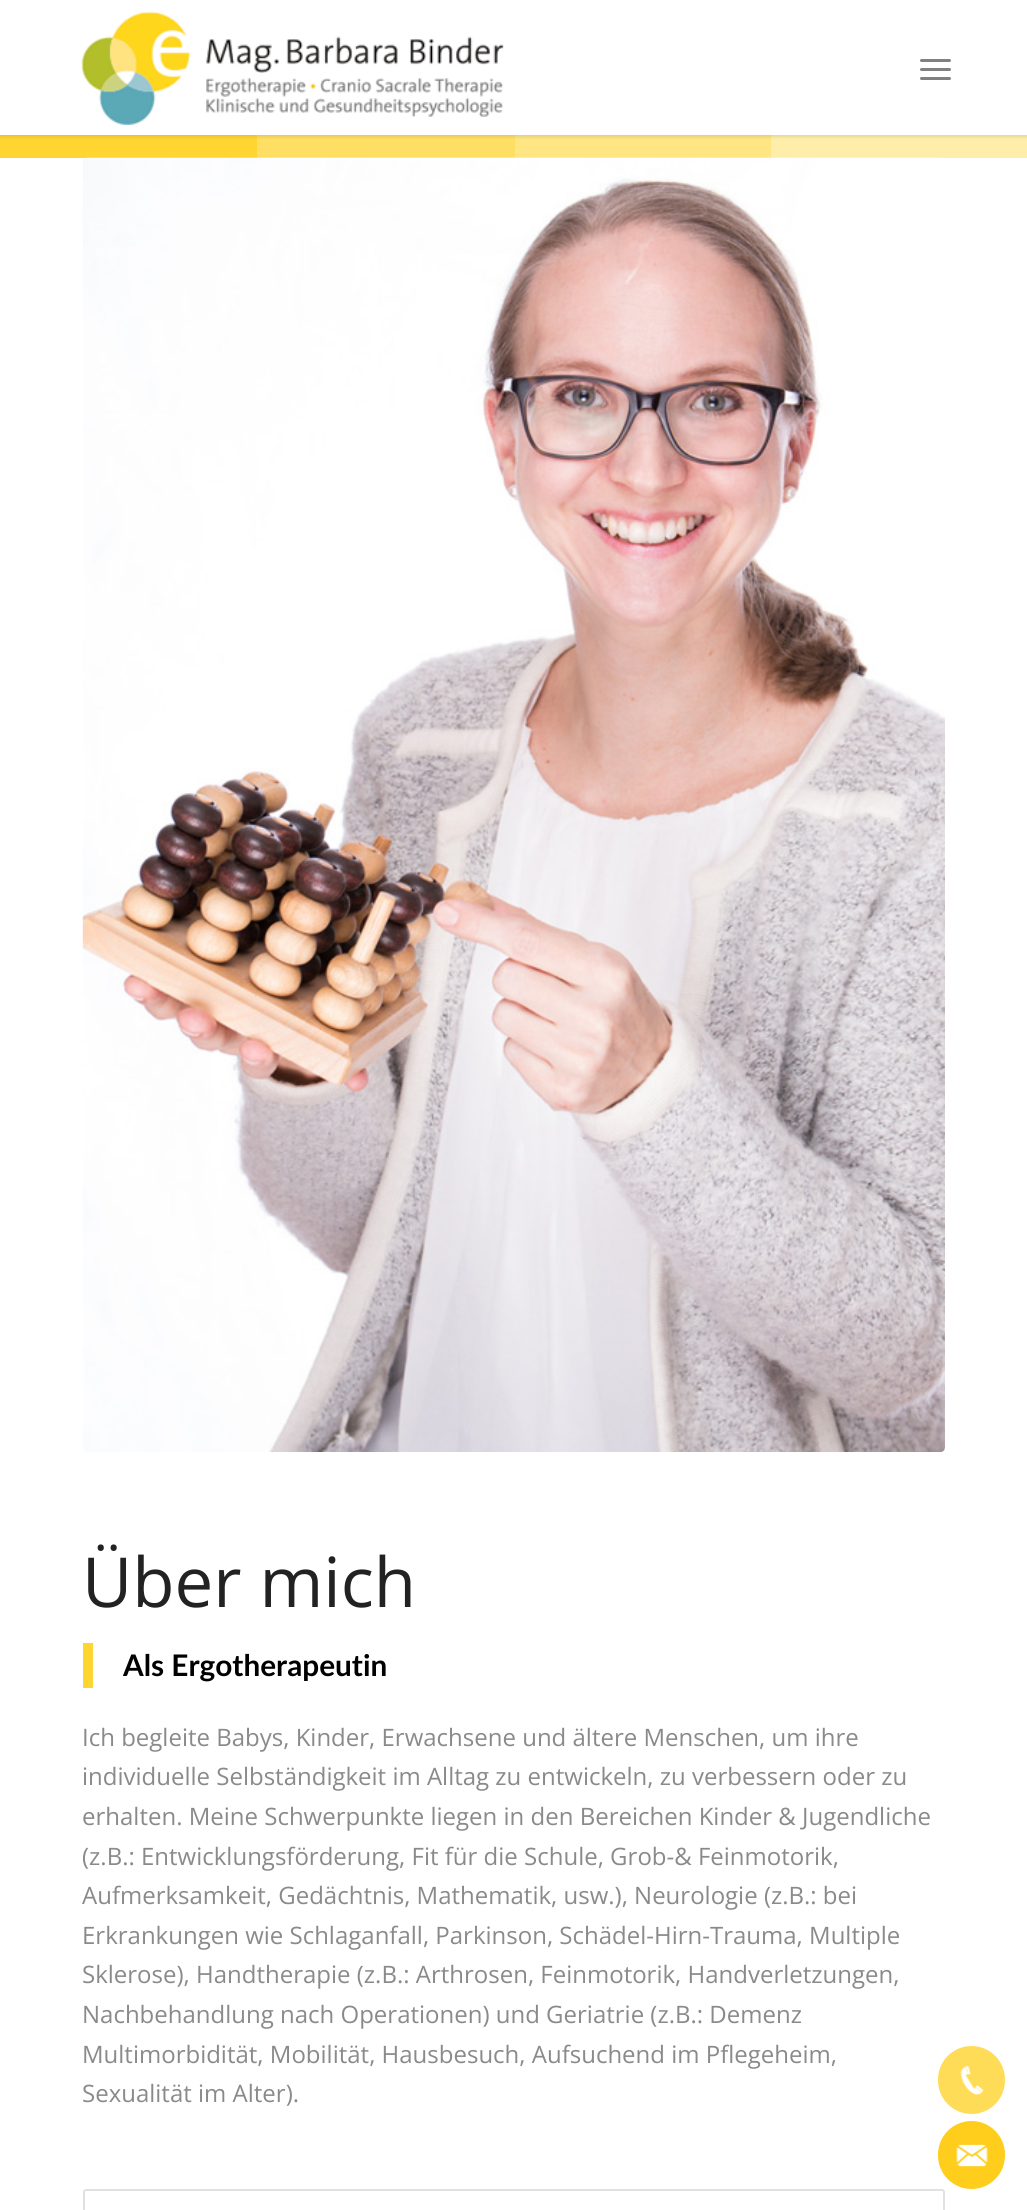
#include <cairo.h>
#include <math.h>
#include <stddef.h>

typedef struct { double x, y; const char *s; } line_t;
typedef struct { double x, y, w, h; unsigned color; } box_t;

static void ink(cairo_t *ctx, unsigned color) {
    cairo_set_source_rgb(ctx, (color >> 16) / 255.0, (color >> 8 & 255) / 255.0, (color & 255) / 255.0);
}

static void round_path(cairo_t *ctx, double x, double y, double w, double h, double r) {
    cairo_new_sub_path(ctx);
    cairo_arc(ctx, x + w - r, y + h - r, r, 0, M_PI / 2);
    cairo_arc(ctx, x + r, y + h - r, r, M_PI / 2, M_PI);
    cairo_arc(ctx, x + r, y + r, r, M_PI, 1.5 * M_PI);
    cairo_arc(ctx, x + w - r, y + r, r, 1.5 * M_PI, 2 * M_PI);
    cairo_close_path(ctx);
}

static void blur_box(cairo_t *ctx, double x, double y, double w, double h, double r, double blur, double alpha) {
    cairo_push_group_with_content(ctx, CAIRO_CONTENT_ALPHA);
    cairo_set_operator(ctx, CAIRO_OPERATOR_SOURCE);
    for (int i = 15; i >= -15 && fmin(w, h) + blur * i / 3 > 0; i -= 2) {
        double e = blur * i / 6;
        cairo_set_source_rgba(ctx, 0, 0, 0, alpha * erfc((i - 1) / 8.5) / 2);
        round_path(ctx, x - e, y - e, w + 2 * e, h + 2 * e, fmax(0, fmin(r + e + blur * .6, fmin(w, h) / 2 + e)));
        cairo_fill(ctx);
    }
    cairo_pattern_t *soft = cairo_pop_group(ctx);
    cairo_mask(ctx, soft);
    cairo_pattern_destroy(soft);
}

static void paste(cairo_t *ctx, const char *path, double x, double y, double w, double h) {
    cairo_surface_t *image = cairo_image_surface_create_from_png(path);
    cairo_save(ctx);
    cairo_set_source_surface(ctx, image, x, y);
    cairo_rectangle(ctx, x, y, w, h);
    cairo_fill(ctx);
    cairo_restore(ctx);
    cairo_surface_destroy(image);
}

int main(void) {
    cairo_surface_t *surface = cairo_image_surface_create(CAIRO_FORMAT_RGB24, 1027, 2210);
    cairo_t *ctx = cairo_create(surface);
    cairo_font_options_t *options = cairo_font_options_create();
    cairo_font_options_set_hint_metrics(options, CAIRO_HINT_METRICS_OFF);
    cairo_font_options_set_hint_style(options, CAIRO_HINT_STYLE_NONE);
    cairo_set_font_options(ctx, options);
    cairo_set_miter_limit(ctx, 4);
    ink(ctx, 0xFFFFFF);
    cairo_paint(ctx);
    {
        static const box_t items[] = {
            {0, 135, 257, 23, 0xFFD631},
            {257, 135, 258, 23, 0xFFDF63},
            {515, 135, 256, 23, 0xFFE682},
            {771, 135, 256, 23, 0xFFEEAA},
        };
        for (size_t i = 0; i < sizeof items / sizeof *items; i++) {
            ink(ctx, items[i].color);
            cairo_rectangle(ctx, items[i].x, items[i].y, items[i].w, items[i].h);
            cairo_fill(ctx);
        }
    }
    ink(ctx, 0x000000);
    blur_box(ctx, -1, -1, 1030, 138, 0, 1.5, 0.1);
    ink(ctx, 0xFFFFFF);
    cairo_rectangle(ctx, 0, 0, 1027, 135);
    cairo_fill(ctx);
    paste(ctx, "media/1.png", 81, 11, 423, 114);
    ink(ctx, 0x808080);
    round_path(ctx, 920, 68, 31, 3, 1.5);
    cairo_fill(ctx);
    round_path(ctx, 920, 59, 31, 3, 1.5);
    cairo_fill(ctx);
    round_path(ctx, 920, 77, 31, 3, 1.5);
    cairo_fill(ctx);
    paste(ctx, "media/2.png", 82, 157, 863, 1295);
    cairo_select_font_face(ctx, "Open Sans", CAIRO_FONT_SLANT_NORMAL, CAIRO_FONT_WEIGHT_NORMAL);
    cairo_set_font_size(ctx, 69);
    ink(ctx, 0x222222);
    cairo_move_to(ctx, 82, 1607);
    cairo_show_text(ctx, "Über mich");
    ink(ctx, 0xFFD631);
    cairo_rectangle(ctx, 83, 1643, 10, 45);
    cairo_fill(ctx);
    cairo_select_font_face(ctx, "Lato", CAIRO_FONT_SLANT_NORMAL, CAIRO_FONT_WEIGHT_BOLD);
    cairo_set_font_size(ctx, 29.75);
    ink(ctx, 0x000000);
    cairo_move_to(ctx, 123, 1676);
    cairo_show_text(ctx, "Als Ergotherapeutin");
    cairo_select_font_face(ctx, "Open Sans", CAIRO_FONT_SLANT_NORMAL, CAIRO_FONT_WEIGHT_NORMAL);
    cairo_set_font_size(ctx, 24);
    ink(ctx, 0x8A8A8A);
    {
        static const line_t items[] = {
            {82, 1746, "Ich begleite Babys, Kinder, Erwachsene und ältere Menschen, um ihre"},
            {82, 1785, "individuelle Selbständigkeit im Alltag zu entwickeln, zu verbessern oder zu"},
            {82, 1825, "erhalten. Meine Schwerpunkte liegen in den Bereichen Kinder & Jugendliche"},
            {82, 1865, "(z.B.: Entwicklungsförderung, Fit für die Schule, Grob-& Feinmotorik,"},
            {82, 1904, "Aufmerksamkeit, Gedächtnis, Mathematik, usw.), Neurologie (z.B.: bei"},
            {82, 1944, "Erkrankungen wie Schlaganfall, Parkinson, Schädel-Hirn-Trauma, Multiple"},
            {82, 1983, "Sklerose), Handtherapie (z.B.: Arthrosen, Feinmotorik, Handverletzungen,"},
            {82, 2023, "Nachbehandlung nach Operationen) und Geriatrie (z.B.: Demenz"},
            {82, 2063, "Multimorbidität, Mobilität, Hausbesuch, Aufsuchend im Pflegeheim,"},
            {82, 2102, "Sexualität im Alter)."},
        };
        for (size_t i = 0; i < sizeof items / sizeof *items; i++) {
            cairo_move_to(ctx, items[i].x, items[i].y);
            cairo_show_text(ctx, items[i].s);
        }
    }
    cairo_new_path(ctx);
    cairo_move_to(ctx, 86, 2190);
    cairo_line_to(ctx, 942, 2190);
    cairo_curve_to(ctx, 943, 2190, 944, 2191, 944, 2192);
    cairo_line_to(ctx, 944, 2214);
    cairo_line_to(ctx, 84, 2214);
    cairo_line_to(ctx, 84, 2192);
    cairo_curve_to(ctx, 84, 2191, 85, 2190, 86, 2190);
    cairo_close_path(ctx);
    ink(ctx, 0xE1E1E1);
    cairo_stroke(ctx);
    ink(ctx, 0xFFDC58);
    round_path(ctx, 938, 2046, 67, 68, 33.5);
    cairo_fill(ctx);
    paste(ctx, "media/3.png", 960, 2066, 24, 29);
    ink(ctx, 0xFFCE1C);
    round_path(ctx, 938, 2121, 67, 68, 33.5);
    cairo_fill(ctx);
    paste(ctx, "media/4.png", 956, 2144, 32, 23);
    cairo_surface_write_to_png(surface, "image.png");
    cairo_font_options_destroy(options);
    cairo_destroy(ctx);
    cairo_surface_destroy(surface);
    return 0;
}
